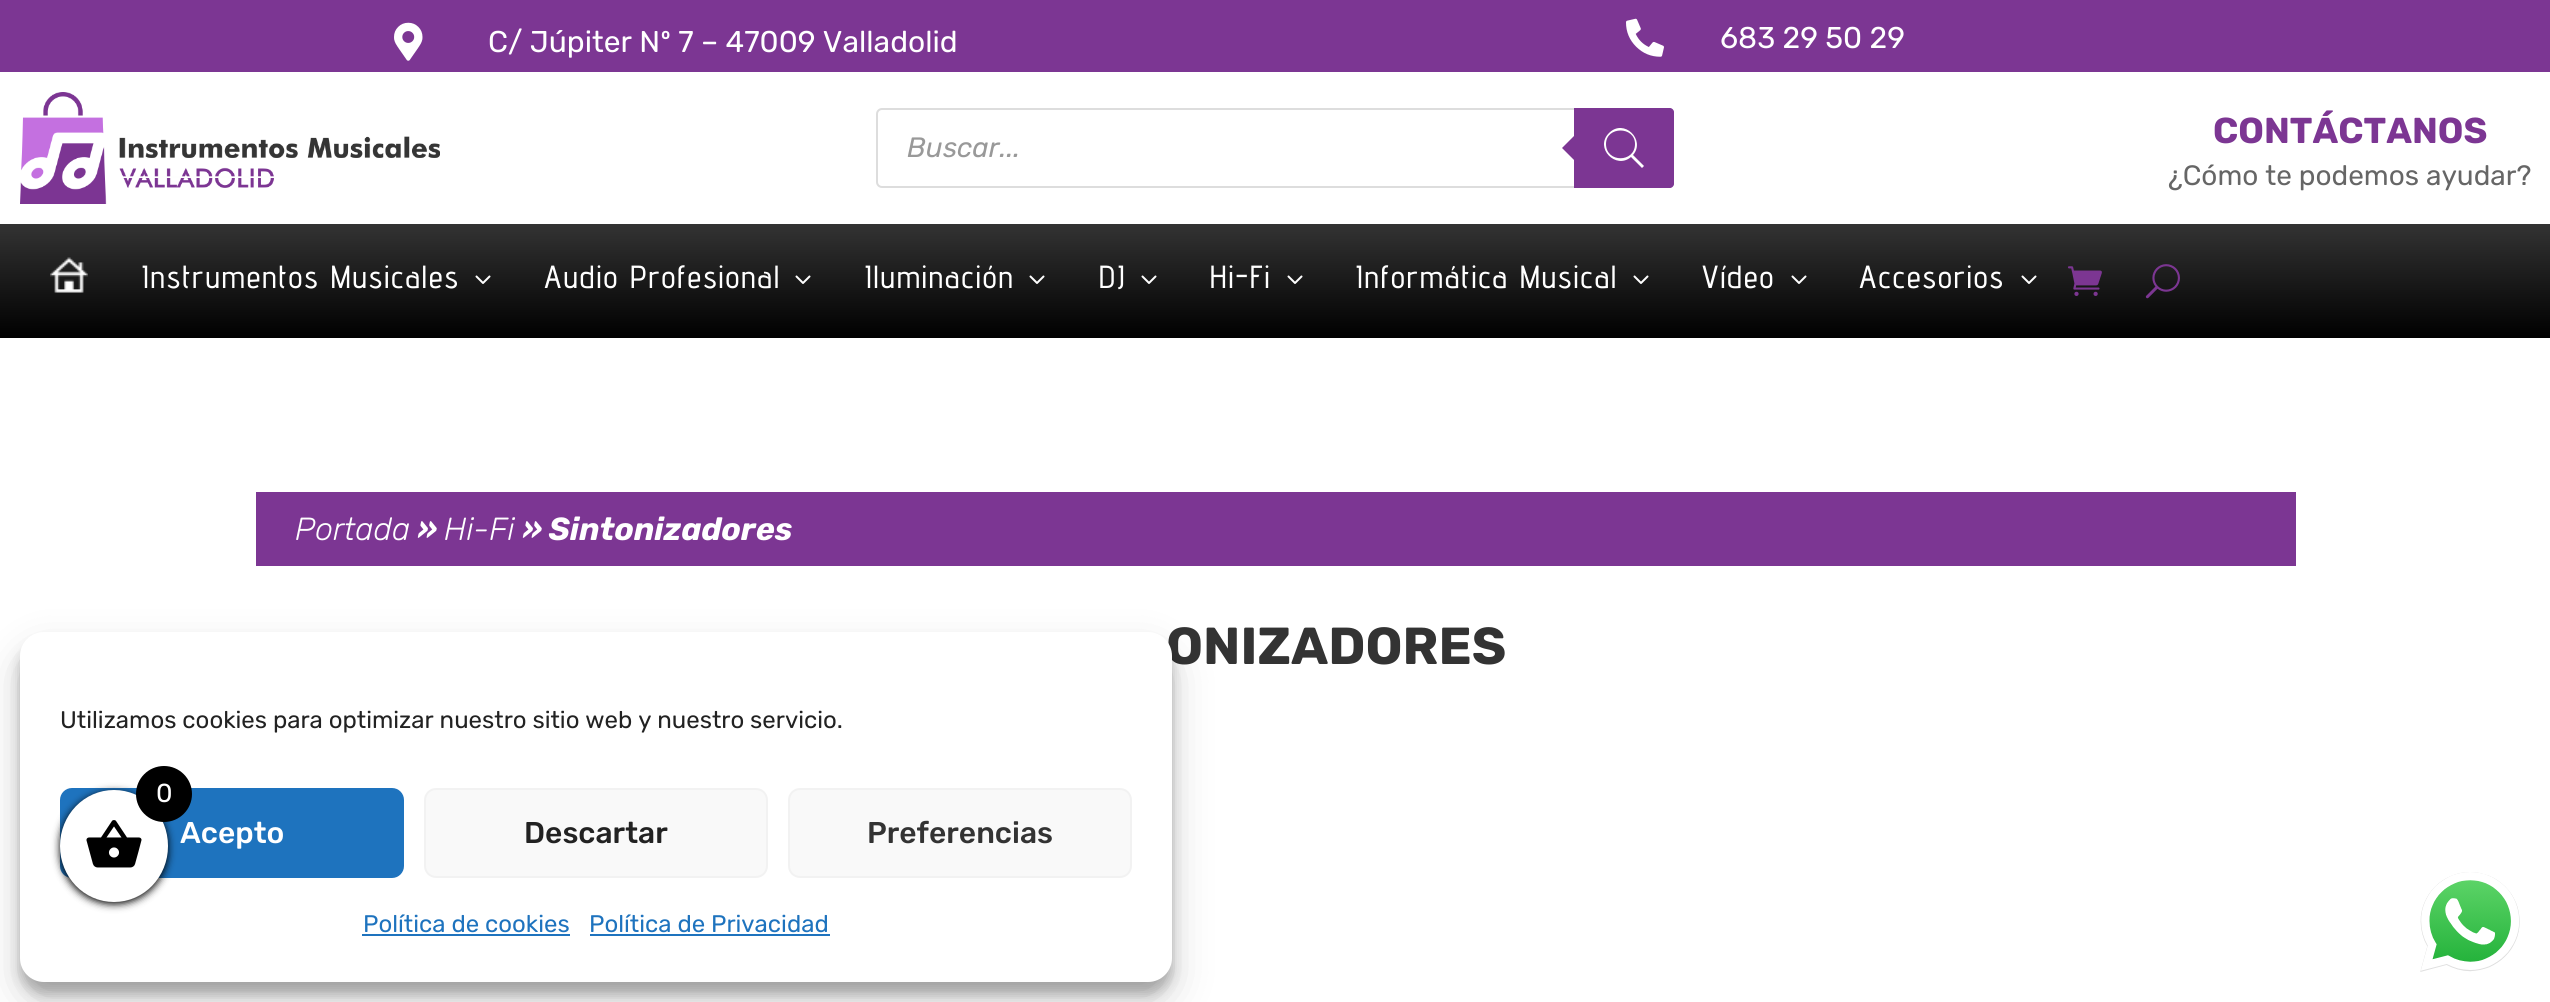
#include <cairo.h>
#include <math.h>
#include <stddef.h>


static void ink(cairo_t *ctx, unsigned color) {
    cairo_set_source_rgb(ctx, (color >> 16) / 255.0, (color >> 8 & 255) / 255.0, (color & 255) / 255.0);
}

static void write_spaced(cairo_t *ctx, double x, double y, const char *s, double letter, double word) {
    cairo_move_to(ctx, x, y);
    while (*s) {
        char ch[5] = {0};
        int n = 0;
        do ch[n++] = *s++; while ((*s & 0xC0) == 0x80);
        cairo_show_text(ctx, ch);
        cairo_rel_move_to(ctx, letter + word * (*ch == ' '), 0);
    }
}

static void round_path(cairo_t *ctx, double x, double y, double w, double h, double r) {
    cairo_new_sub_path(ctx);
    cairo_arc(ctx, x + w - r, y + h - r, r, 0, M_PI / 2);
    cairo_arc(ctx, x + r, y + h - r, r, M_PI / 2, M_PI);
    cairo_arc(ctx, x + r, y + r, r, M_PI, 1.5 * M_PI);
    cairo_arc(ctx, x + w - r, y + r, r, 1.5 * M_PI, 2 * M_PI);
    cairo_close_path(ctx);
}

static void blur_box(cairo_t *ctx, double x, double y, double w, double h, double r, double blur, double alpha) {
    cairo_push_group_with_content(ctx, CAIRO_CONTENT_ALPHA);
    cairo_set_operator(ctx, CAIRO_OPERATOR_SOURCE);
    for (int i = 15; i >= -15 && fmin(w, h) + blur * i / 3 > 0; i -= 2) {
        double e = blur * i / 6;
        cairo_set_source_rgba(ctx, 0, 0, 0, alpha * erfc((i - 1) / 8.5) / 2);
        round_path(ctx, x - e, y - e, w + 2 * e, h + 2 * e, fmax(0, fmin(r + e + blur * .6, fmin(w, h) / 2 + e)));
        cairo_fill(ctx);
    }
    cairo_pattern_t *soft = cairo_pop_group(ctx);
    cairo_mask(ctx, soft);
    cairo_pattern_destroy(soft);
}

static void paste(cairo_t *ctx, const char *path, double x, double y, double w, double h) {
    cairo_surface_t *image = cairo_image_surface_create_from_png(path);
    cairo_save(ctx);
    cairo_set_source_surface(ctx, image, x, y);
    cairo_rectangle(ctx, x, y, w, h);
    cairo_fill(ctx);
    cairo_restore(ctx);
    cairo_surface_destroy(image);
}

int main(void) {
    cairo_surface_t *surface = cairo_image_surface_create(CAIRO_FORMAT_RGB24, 2550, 1002);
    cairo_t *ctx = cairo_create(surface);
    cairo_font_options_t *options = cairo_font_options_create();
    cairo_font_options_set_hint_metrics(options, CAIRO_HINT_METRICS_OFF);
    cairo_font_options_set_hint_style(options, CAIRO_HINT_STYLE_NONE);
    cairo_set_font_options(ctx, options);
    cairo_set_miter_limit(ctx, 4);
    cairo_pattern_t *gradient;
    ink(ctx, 0xFFFFFF);
    cairo_paint(ctx);
    ink(ctx, 0x7C3693);
    cairo_rectangle(ctx, 0, 0, 2550, 72);
    cairo_fill(ctx);
    paste(ctx, "media/1.png", 394, 22, 29, 39);
    cairo_select_font_face(ctx, "Rubik", CAIRO_FONT_SLANT_NORMAL, CAIRO_FONT_WEIGHT_NORMAL);
    cairo_set_font_size(ctx, 30);
    ink(ctx, 0xFFFFFF);
    cairo_move_to(ctx, 488, 52);
    cairo_show_text(ctx, "C/ Júpiter Nº 7 – 47009 Valladolid");
    paste(ctx, "media/2.png", 1626, 18, 38, 39);
    cairo_move_to(ctx, 1720, 48);
    cairo_show_text(ctx, "683 29 50 29");
    paste(ctx, "media/3.png", 20, 92, 420, 112);
    round_path(ctx, 877, 109, 796, 78, 5);
    ink(ctx, 0xDDDDDD);
    cairo_stroke(ctx);
    cairo_select_font_face(ctx, "Rubik", CAIRO_FONT_SLANT_ITALIC, CAIRO_FONT_WEIGHT_NORMAL);
    cairo_set_font_size(ctx, 28);
    ink(ctx, 0x999999);
    cairo_move_to(ctx, 907, 157);
    cairo_show_text(ctx, "Buscar...");
    ink(ctx, 0x7C3693);
    cairo_new_path(ctx);
    cairo_move_to(ctx, 1574, 108);
    cairo_line_to(ctx, 1670, 108);
    cairo_curve_to(ctx, 1672, 108, 1674, 110, 1674, 112);
    cairo_line_to(ctx, 1674, 184);
    cairo_curve_to(ctx, 1674, 186, 1672, 188, 1670, 188);
    cairo_line_to(ctx, 1574, 188);
    cairo_close_path(ctx);
    cairo_fill(ctx);
    cairo_new_path(ctx);
    cairo_move_to(ctx, 1578, 132);
    cairo_line_to(ctx, 1578, 164);
    cairo_line_to(ctx, 1562, 148);
    cairo_close_path(ctx);
    cairo_fill(ctx);
    ink(ctx, 0xFFFFFF);
    cairo_new_path(ctx);
    cairo_move_to(ctx, 1644, 166);
    cairo_line_to(ctx, 1633, 155);
    cairo_curve_to(ctx, 1646, 140, 1624, 118, 1609, 133);
    cairo_curve_to(ctx, 1594, 148, 1616, 170, 1631, 157);
    cairo_line_to(ctx, 1642, 168);
    cairo_close_path(ctx);
    cairo_move_to(ctx, 1606, 144);
    cairo_curve_to(ctx, 1606, 126, 1635, 126, 1635, 144);
    cairo_curve_to(ctx, 1635, 163, 1606, 163, 1606, 144);
    cairo_close_path(ctx);
    cairo_fill(ctx);
    cairo_select_font_face(ctx, "Rubik", CAIRO_FONT_SLANT_NORMAL, CAIRO_FONT_WEIGHT_BOLD);
    cairo_set_font_size(ctx, 36);
    ink(ctx, 0x7C3693);
    cairo_move_to(ctx, 2213, 143);
    cairo_show_text(ctx, "CONTÁCTANOS");
    cairo_select_font_face(ctx, "Rubik", CAIRO_FONT_SLANT_NORMAL, CAIRO_FONT_WEIGHT_NORMAL);
    cairo_set_font_size(ctx, 28);
    ink(ctx, 0x666666);
    cairo_move_to(ctx, 2168, 185);
    cairo_show_text(ctx, "¿Cómo te podemos ayudar?");
    gradient = cairo_pattern_create_linear(1275, 224, 1275, 338);
    cairo_pattern_add_color_stop_rgba(gradient, 0, 0.2, 0.2, 0.2, 1);
    cairo_pattern_add_color_stop_rgba(gradient, 1, 0, 0, 0, 1);
    cairo_set_source(ctx, gradient);
    cairo_pattern_destroy(gradient);
    cairo_rectangle(ctx, 0, 224, 2550, 114);
    cairo_fill(ctx);
    paste(ctx, "media/4.png", 50, 257, 38, 36);
    cairo_select_font_face(ctx, "Advent Pro Medium", CAIRO_FONT_SLANT_NORMAL, CAIRO_FONT_WEIGHT_NORMAL);
    cairo_set_font_size(ctx, 32);
    ink(ctx, 0xFFFFFF);
    write_spaced(ctx, 142, 288, "Instrumentos Musicales", 2, 0);
    paste(ctx, "media/5.png", 475, 275, 16, 9);
    write_spaced(ctx, 544, 288, "Audio Profesional", 2, 0);
    paste(ctx, "media/5.png", 795, 275, 16, 9);
    write_spaced(ctx, 865, 288, "Iluminación", 2, 0);
    paste(ctx, "media/5.png", 1029, 275, 16, 9);
    write_spaced(ctx, 1099, 288, "DJ", 2, 0);
    paste(ctx, "media/5.png", 1141, 275, 16, 9);
    write_spaced(ctx, 1210, 288, "Hi-Fi", 2, 0);
    paste(ctx, "media/5.png", 1287, 275, 16, 9);
    write_spaced(ctx, 1356, 288, "Informática Musical", 2, 0);
    paste(ctx, "media/5.png", 1633, 275, 16, 9);
    write_spaced(ctx, 1702, 288, "Vídeo", 2, 0);
    paste(ctx, "media/5.png", 1791, 275, 16, 9);
    write_spaced(ctx, 1859, 288, "Accesorios", 2, 0);
    paste(ctx, "media/5.png", 2021, 275, 16, 9);
    paste(ctx, "media/6.png", 2068, 266, 34, 30);
    paste(ctx, "media/7.png", 2145, 264, 35, 35);
    ink(ctx, 0x7C3693);
    cairo_rectangle(ctx, 256, 492, 2040, 74);
    cairo_fill(ctx);
    cairo_select_font_face(ctx, "Rubik Light", CAIRO_FONT_SLANT_ITALIC, CAIRO_FONT_WEIGHT_NORMAL);
    ink(ctx, 0xFFFFFF);
    cairo_move_to(ctx, 295, 540);
    cairo_show_text(ctx, "Portada");
    cairo_select_font_face(ctx, "Rubik", CAIRO_FONT_SLANT_ITALIC, CAIRO_FONT_WEIGHT_BOLD);
    cairo_move_to(ctx, 417, 540);
    cairo_show_text(ctx, "»");
    cairo_select_font_face(ctx, "Rubik Light", CAIRO_FONT_SLANT_ITALIC, CAIRO_FONT_WEIGHT_NORMAL);
    cairo_move_to(ctx, 444, 540);
    cairo_show_text(ctx, "Hi-Fi");
    cairo_select_font_face(ctx, "Rubik", CAIRO_FONT_SLANT_ITALIC, CAIRO_FONT_WEIGHT_BOLD);
    cairo_move_to(ctx, 522, 540);
    cairo_show_text(ctx, "» Sintonizadores");
    cairo_select_font_face(ctx, "Rubik", CAIRO_FONT_SLANT_NORMAL, CAIRO_FONT_WEIGHT_BOLD);
    cairo_set_font_size(ctx, 52);
    ink(ctx, 0x333333);
    cairo_move_to(ctx, 1166, 664);
    cairo_show_text(ctx, "ONIZADORES");
    ink(ctx, 0x000000);
    blur_box(ctx, 20, 644, 1152, 350, 24, 6, 0.23);
    blur_box(ctx, 20, 652, 1152, 350, 24, 20, 0.19);
    ink(ctx, 0xFFFFFF);
    round_path(ctx, 20, 632, 1152, 350, 24);
    cairo_fill(ctx);
    cairo_select_font_face(ctx, "Rubik", CAIRO_FONT_SLANT_NORMAL, CAIRO_FONT_WEIGHT_NORMAL);
    cairo_set_font_size(ctx, 24);
    ink(ctx, 0x222222);
    cairo_move_to(ctx, 60, 728);
    cairo_show_text(ctx, "Utilizamos cookies para optimizar nuestro sitio web y nuestro servicio.");
    ink(ctx, 0x1E73BE);
    round_path(ctx, 61, 789, 342, 88, 11);
    cairo_fill_preserve(ctx);
    cairo_stroke(ctx);
    cairo_select_font_face(ctx, "Rubik Medium", CAIRO_FONT_SLANT_NORMAL, CAIRO_FONT_WEIGHT_NORMAL);
    cairo_set_font_size(ctx, 30);
    ink(ctx, 0xFFFFFF);
    cairo_move_to(ctx, 180, 843);
    cairo_show_text(ctx, "Acepto");
    ink(ctx, 0xF9F9F9);
    round_path(ctx, 425, 789, 342, 88, 11);
    cairo_fill_preserve(ctx);
    ink(ctx, 0xF2F2F2);
    cairo_stroke(ctx);
    ink(ctx, 0x222222);
    cairo_move_to(ctx, 524, 843);
    cairo_show_text(ctx, "Descartar");
    ink(ctx, 0xF9F9F9);
    round_path(ctx, 789, 789, 342, 88, 11);
    cairo_fill_preserve(ctx);
    ink(ctx, 0xF2F2F2);
    cairo_stroke(ctx);
    ink(ctx, 0x333333);
    cairo_move_to(ctx, 867, 843);
    cairo_show_text(ctx, "Preferencias");
    cairo_select_font_face(ctx, "Rubik", CAIRO_FONT_SLANT_NORMAL, CAIRO_FONT_WEIGHT_NORMAL);
    cairo_set_font_size(ctx, 24);
    ink(ctx, 0x1E73BE);
    cairo_move_to(ctx, 363, 932);
    cairo_show_text(ctx, "Política de cookies");
    cairo_rectangle(ctx, 362, 934, 208, 2);
    cairo_fill(ctx);
    cairo_move_to(ctx, 589, 932);
    cairo_show_text(ctx, "Política de Privacidad");
    cairo_rectangle(ctx, 590, 934, 240, 2);
    cairo_fill(ctx);
    ink(ctx, 0x000000);
    blur_box(ctx, 60, 792, 108, 112, 54, 4, 1);
    ink(ctx, 0xFFFFFF);
    cairo_new_path(ctx);
    cairo_move_to(ctx, 114, 790);
    cairo_curve_to(ctx, 144, 790, 168, 815, 168, 846);
    cairo_curve_to(ctx, 168, 877, 144, 902, 114, 902);
    cairo_curve_to(ctx, 84, 902, 60, 877, 60, 846);
    cairo_curve_to(ctx, 60, 815, 84, 790, 114, 790);
    cairo_close_path(ctx);
    cairo_fill(ctx);
    ink(ctx, 0x000000);
    cairo_arc(ctx, 164, 794, 28, 0, 2 * M_PI);
    cairo_fill(ctx);
    cairo_set_font_size(ctx, 26);
    ink(ctx, 0xFFFFFF);
    cairo_move_to(ctx, 156, 802);
    cairo_show_text(ctx, "0");
    paste(ctx, "media/8.png", 86, 820, 56, 48);
    paste(ctx, "media/9.png", 2420, 872, 100, 100);
    cairo_surface_write_to_png(surface, "image.png");
    cairo_font_options_destroy(options);
    cairo_destroy(ctx);
    cairo_surface_destroy(surface);
    return 0;
}
